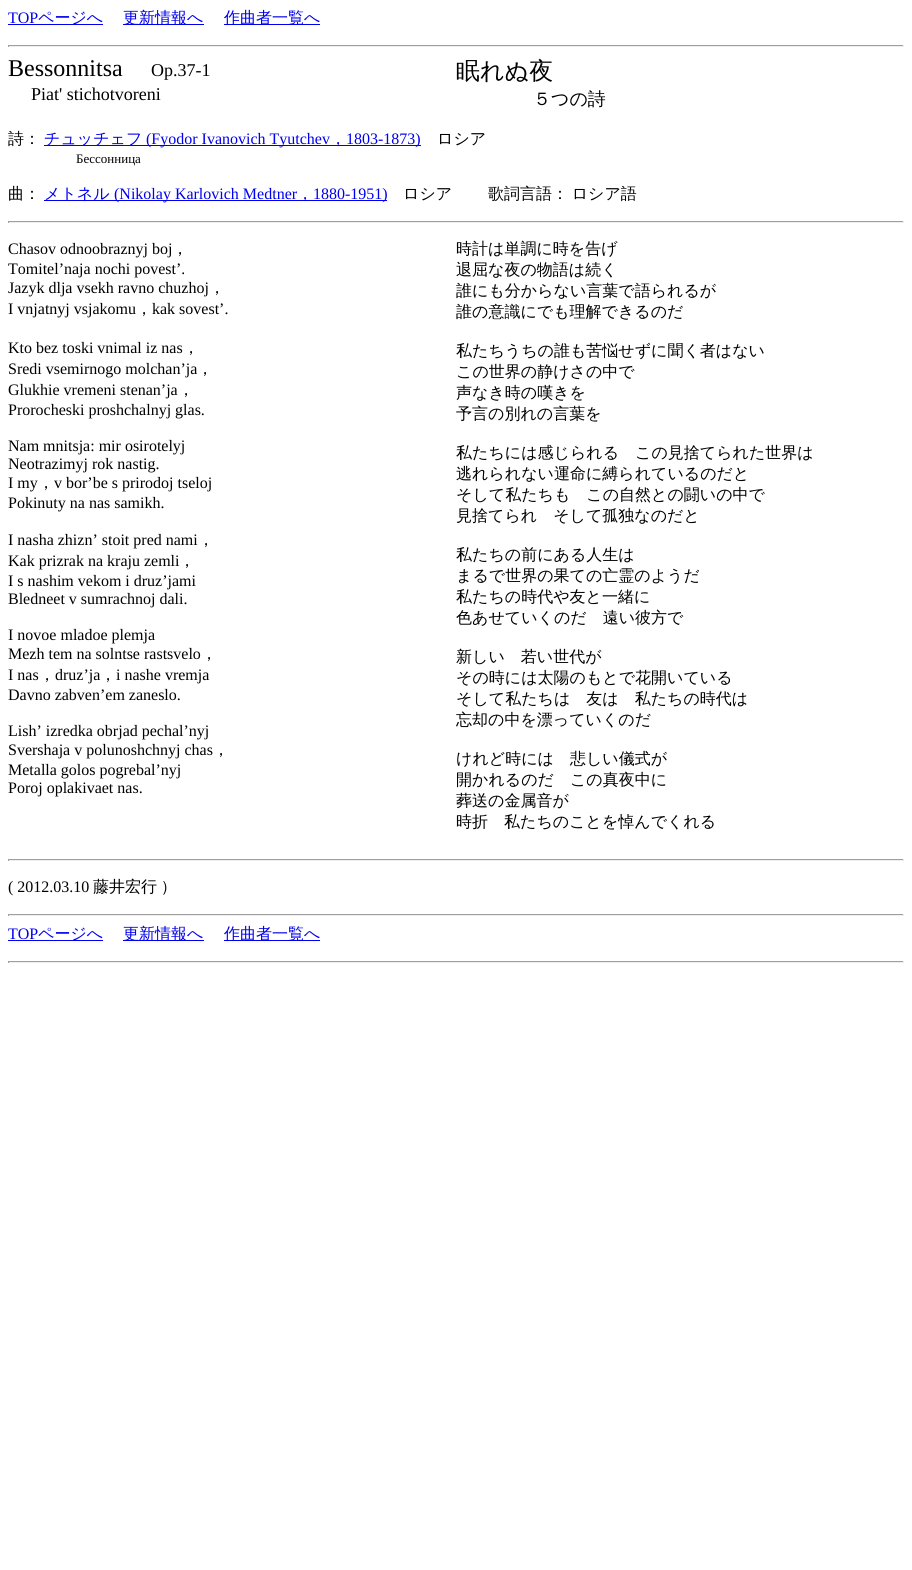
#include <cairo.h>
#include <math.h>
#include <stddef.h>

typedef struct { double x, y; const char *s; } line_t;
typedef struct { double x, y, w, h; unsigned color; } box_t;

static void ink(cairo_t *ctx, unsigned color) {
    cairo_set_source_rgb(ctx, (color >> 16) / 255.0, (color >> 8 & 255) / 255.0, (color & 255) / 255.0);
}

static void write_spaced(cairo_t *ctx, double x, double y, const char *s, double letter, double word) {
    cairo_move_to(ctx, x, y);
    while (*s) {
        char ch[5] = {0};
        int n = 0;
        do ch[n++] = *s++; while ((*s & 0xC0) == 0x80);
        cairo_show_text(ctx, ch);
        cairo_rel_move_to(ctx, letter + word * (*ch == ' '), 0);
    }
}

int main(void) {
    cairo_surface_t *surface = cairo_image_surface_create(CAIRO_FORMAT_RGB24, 912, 1570);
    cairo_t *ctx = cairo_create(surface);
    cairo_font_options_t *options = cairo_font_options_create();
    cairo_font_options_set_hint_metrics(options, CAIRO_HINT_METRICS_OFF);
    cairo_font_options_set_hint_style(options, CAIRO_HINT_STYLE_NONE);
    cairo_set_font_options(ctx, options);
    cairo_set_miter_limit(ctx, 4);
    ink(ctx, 0xFFFFFF);
    cairo_paint(ctx);
    cairo_select_font_face(ctx, "Liberation Serif", CAIRO_FONT_SLANT_NORMAL, CAIRO_FONT_WEIGHT_NORMAL);
    cairo_set_font_size(ctx, 16);
    ink(ctx, 0x0000EE);
    cairo_move_to(ctx, 8, 23);
    cairo_show_text(ctx, "TOP");
    cairo_rectangle(ctx, 8, 24, 95, 1);
    cairo_fill(ctx);
    cairo_select_font_face(ctx, "WenQuanYi Zen Hei Medium", CAIRO_FONT_SLANT_NORMAL, CAIRO_FONT_WEIGHT_NORMAL);
    cairo_move_to(ctx, 38, 23);
    cairo_show_text(ctx, "ページへ");
    cairo_rectangle(ctx, 123, 24, 81, 1);
    cairo_fill(ctx);
    cairo_move_to(ctx, 123, 23);
    cairo_show_text(ctx, "更新情報へ");
    cairo_rectangle(ctx, 224, 24, 96, 1);
    cairo_fill(ctx);
    cairo_move_to(ctx, 224, 23);
    cairo_show_text(ctx, "作曲者一覧へ");
    {
        static const box_t items[] = {
            {8, 45, 896, 1, 0x9F9F9F},
            {903, 45, 1, 2, 0xEEEEEE},
            {8, 46, 896, 1, 0xEEEEEE},
            {8, 45, 1, 2, 0x9F9F9F},
        };
        for (size_t i = 0; i < sizeof items / sizeof *items; i++) {
            ink(ctx, items[i].color);
            cairo_rectangle(ctx, items[i].x, items[i].y, items[i].w, items[i].h);
            cairo_fill(ctx);
        }
    }
    cairo_select_font_face(ctx, "Liberation Serif", CAIRO_FONT_SLANT_NORMAL, CAIRO_FONT_WEIGHT_NORMAL);
    cairo_set_font_size(ctx, 24);
    ink(ctx, 0x000000);
    cairo_move_to(ctx, 8, 76);
    cairo_show_text(ctx, "Bessonnitsa");
    cairo_set_font_size(ctx, 18);
    cairo_move_to(ctx, 151, 76);
    cairo_show_text(ctx, "Op.37-1");
    cairo_move_to(ctx, 31, 100);
    cairo_show_text(ctx, "Piat' stichotvoreni");
    cairo_select_font_face(ctx, "WenQuanYi Zen Hei Medium", CAIRO_FONT_SLANT_NORMAL, CAIRO_FONT_WEIGHT_NORMAL);
    cairo_set_font_size(ctx, 24);
    cairo_move_to(ctx, 456, 79);
    cairo_show_text(ctx, "眠れぬ夜");
    cairo_set_font_size(ctx, 18);
    cairo_move_to(ctx, 533, 105);
    cairo_show_text(ctx, "５つの詩");
    cairo_set_font_size(ctx, 16);
    cairo_move_to(ctx, 8, 144);
    cairo_show_text(ctx, "詩：");
    ink(ctx, 0x0000EE);
    cairo_rectangle(ctx, 44, 145, 377, 1);
    cairo_fill(ctx);
    cairo_move_to(ctx, 44, 144);
    cairo_show_text(ctx, "チュッチェフ");
    cairo_select_font_face(ctx, "Liberation Serif", CAIRO_FONT_SLANT_NORMAL, CAIRO_FONT_WEIGHT_NORMAL);
    cairo_move_to(ctx, 146, 144);
    cairo_show_text(ctx, "(Fyodor Ivanovich Tyutchev");
    cairo_select_font_face(ctx, "WenQuanYi Zen Hei Medium", CAIRO_FONT_SLANT_NORMAL, CAIRO_FONT_WEIGHT_NORMAL);
    cairo_move_to(ctx, 330, 144);
    cairo_show_text(ctx, "，");
    cairo_select_font_face(ctx, "Liberation Serif", CAIRO_FONT_SLANT_NORMAL, CAIRO_FONT_WEIGHT_NORMAL);
    cairo_move_to(ctx, 346, 144);
    cairo_show_text(ctx, "1803-1873)");
    cairo_select_font_face(ctx, "WenQuanYi Zen Hei Medium", CAIRO_FONT_SLANT_NORMAL, CAIRO_FONT_WEIGHT_NORMAL);
    ink(ctx, 0x000000);
    cairo_move_to(ctx, 437, 144);
    cairo_show_text(ctx, "ロシア");
    cairo_select_font_face(ctx, "Liberation Serif", CAIRO_FONT_SLANT_NORMAL, CAIRO_FONT_WEIGHT_NORMAL);
    cairo_set_font_size(ctx, 13);
    cairo_move_to(ctx, 76, 163);
    cairo_show_text(ctx, "Бессонница");
    cairo_select_font_face(ctx, "WenQuanYi Zen Hei Medium", CAIRO_FONT_SLANT_NORMAL, CAIRO_FONT_WEIGHT_NORMAL);
    cairo_set_font_size(ctx, 16);
    cairo_move_to(ctx, 8, 199);
    cairo_show_text(ctx, "曲：");
    ink(ctx, 0x0000EE);
    cairo_rectangle(ctx, 44, 200, 343, 1);
    cairo_fill(ctx);
    cairo_move_to(ctx, 44, 199);
    cairo_show_text(ctx, "メトネル");
    cairo_select_font_face(ctx, "Liberation Serif", CAIRO_FONT_SLANT_NORMAL, CAIRO_FONT_WEIGHT_NORMAL);
    cairo_move_to(ctx, 114, 199);
    cairo_show_text(ctx, "(Nikolay Karlovich Medtner");
    cairo_select_font_face(ctx, "WenQuanYi Zen Hei Medium", CAIRO_FONT_SLANT_NORMAL, CAIRO_FONT_WEIGHT_NORMAL);
    cairo_move_to(ctx, 297, 199);
    cairo_show_text(ctx, "，");
    cairo_select_font_face(ctx, "Liberation Serif", CAIRO_FONT_SLANT_NORMAL, CAIRO_FONT_WEIGHT_NORMAL);
    cairo_move_to(ctx, 313, 199);
    cairo_show_text(ctx, "1880-1951)");
    cairo_select_font_face(ctx, "WenQuanYi Zen Hei Medium", CAIRO_FONT_SLANT_NORMAL, CAIRO_FONT_WEIGHT_NORMAL);
    ink(ctx, 0x000000);
    write_spaced(ctx, 403, 199, "ロシア 　　歌詞言語： ロシア語", 0, -1);
    {
        static const box_t items[] = {
            {8, 221, 896, 1, 0x9F9F9F},
            {903, 221, 1, 2, 0xEEEEEE},
            {8, 222, 896, 1, 0xEEEEEE},
            {8, 221, 1, 2, 0x9F9F9F},
        };
        for (size_t i = 0; i < sizeof items / sizeof *items; i++) {
            ink(ctx, items[i].color);
            cairo_rectangle(ctx, items[i].x, items[i].y, items[i].w, items[i].h);
            cairo_fill(ctx);
        }
    }
    cairo_select_font_face(ctx, "Liberation Serif", CAIRO_FONT_SLANT_NORMAL, CAIRO_FONT_WEIGHT_NORMAL);
    ink(ctx, 0x000000);
    cairo_move_to(ctx, 8, 254);
    cairo_show_text(ctx, "Chasov odnoobraznyj boj");
    cairo_select_font_face(ctx, "WenQuanYi Zen Hei Medium", CAIRO_FONT_SLANT_NORMAL, CAIRO_FONT_WEIGHT_NORMAL);
    cairo_move_to(ctx, 172, 254);
    cairo_show_text(ctx, "，");
    cairo_select_font_face(ctx, "Liberation Serif", CAIRO_FONT_SLANT_NORMAL, CAIRO_FONT_WEIGHT_NORMAL);
    cairo_move_to(ctx, 8, 274);
    cairo_show_text(ctx, "Tomitel’naja nochi povest’.");
    cairo_move_to(ctx, 8, 293);
    cairo_show_text(ctx, "Jazyk dlja vsekh ravno chuzhoj");
    cairo_select_font_face(ctx, "WenQuanYi Zen Hei Medium", CAIRO_FONT_SLANT_NORMAL, CAIRO_FONT_WEIGHT_NORMAL);
    cairo_move_to(ctx, 209, 293);
    cairo_show_text(ctx, "，");
    cairo_select_font_face(ctx, "Liberation Serif", CAIRO_FONT_SLANT_NORMAL, CAIRO_FONT_WEIGHT_NORMAL);
    cairo_move_to(ctx, 8, 314);
    cairo_show_text(ctx, "I vnjatnyj vsjakomu");
    cairo_select_font_face(ctx, "WenQuanYi Zen Hei Medium", CAIRO_FONT_SLANT_NORMAL, CAIRO_FONT_WEIGHT_NORMAL);
    cairo_move_to(ctx, 136, 314);
    cairo_show_text(ctx, "，");
    cairo_select_font_face(ctx, "Liberation Serif", CAIRO_FONT_SLANT_NORMAL, CAIRO_FONT_WEIGHT_NORMAL);
    cairo_move_to(ctx, 152, 314);
    cairo_show_text(ctx, "kak sovest’.");
    cairo_move_to(ctx, 8, 353);
    cairo_show_text(ctx, "Kto bez toski vnimal iz nas");
    cairo_select_font_face(ctx, "WenQuanYi Zen Hei Medium", CAIRO_FONT_SLANT_NORMAL, CAIRO_FONT_WEIGHT_NORMAL);
    cairo_move_to(ctx, 183, 353);
    cairo_show_text(ctx, "，");
    cairo_select_font_face(ctx, "Liberation Serif", CAIRO_FONT_SLANT_NORMAL, CAIRO_FONT_WEIGHT_NORMAL);
    cairo_move_to(ctx, 8, 374);
    cairo_show_text(ctx, "Sredi vsemirnogo molchan’ja");
    cairo_select_font_face(ctx, "WenQuanYi Zen Hei Medium", CAIRO_FONT_SLANT_NORMAL, CAIRO_FONT_WEIGHT_NORMAL);
    cairo_move_to(ctx, 197, 374);
    cairo_show_text(ctx, "，");
    cairo_select_font_face(ctx, "Liberation Serif", CAIRO_FONT_SLANT_NORMAL, CAIRO_FONT_WEIGHT_NORMAL);
    cairo_move_to(ctx, 8, 395);
    cairo_show_text(ctx, "Glukhie vremeni stenan’ja");
    cairo_select_font_face(ctx, "WenQuanYi Zen Hei Medium", CAIRO_FONT_SLANT_NORMAL, CAIRO_FONT_WEIGHT_NORMAL);
    cairo_move_to(ctx, 178, 395);
    cairo_show_text(ctx, "，");
    cairo_select_font_face(ctx, "Liberation Serif", CAIRO_FONT_SLANT_NORMAL, CAIRO_FONT_WEIGHT_NORMAL);
    {
        static const line_t items[] = {
            {8, 415, "Prorocheski proshchalnyj glas."},
            {8, 451, "Nam mnitsja: mir osirotelyj"},
            {8, 469, "Neotrazimyj rok nastig."},
            {8, 488, "I my"},
        };
        for (size_t i = 0; i < sizeof items / sizeof *items; i++) {
            cairo_move_to(ctx, items[i].x, items[i].y);
            cairo_show_text(ctx, items[i].s);
        }
    }
    cairo_select_font_face(ctx, "WenQuanYi Zen Hei Medium", CAIRO_FONT_SLANT_NORMAL, CAIRO_FONT_WEIGHT_NORMAL);
    cairo_move_to(ctx, 38, 488);
    cairo_show_text(ctx, "，");
    cairo_select_font_face(ctx, "Liberation Serif", CAIRO_FONT_SLANT_NORMAL, CAIRO_FONT_WEIGHT_NORMAL);
    {
        static const line_t items[] = {
            {54, 488, "v bor’be s prirodoj tseloj"},
            {8, 508, "Pokinuty na nas samikh."},
            {8, 545, "I nasha zhizn’ stoit pred nami"},
        };
        for (size_t i = 0; i < sizeof items / sizeof *items; i++) {
            cairo_move_to(ctx, items[i].x, items[i].y);
            cairo_show_text(ctx, items[i].s);
        }
    }
    cairo_select_font_face(ctx, "WenQuanYi Zen Hei Medium", CAIRO_FONT_SLANT_NORMAL, CAIRO_FONT_WEIGHT_NORMAL);
    cairo_move_to(ctx, 198, 545);
    cairo_show_text(ctx, "，");
    cairo_select_font_face(ctx, "Liberation Serif", CAIRO_FONT_SLANT_NORMAL, CAIRO_FONT_WEIGHT_NORMAL);
    cairo_move_to(ctx, 8, 566);
    cairo_show_text(ctx, "Kak prizrak na kraju zemli");
    cairo_select_font_face(ctx, "WenQuanYi Zen Hei Medium", CAIRO_FONT_SLANT_NORMAL, CAIRO_FONT_WEIGHT_NORMAL);
    cairo_move_to(ctx, 179, 566);
    cairo_show_text(ctx, "，");
    cairo_select_font_face(ctx, "Liberation Serif", CAIRO_FONT_SLANT_NORMAL, CAIRO_FONT_WEIGHT_NORMAL);
    {
        static const line_t items[] = {
            {8, 586, "I s nashim vekom i druz’jami"},
            {8, 604, "Bledneet v sumrachnoj dali."},
            {8, 640, "I novoe mladoe plemja"},
            {8, 659, "Mezh tem na solntse rastsvelo"},
        };
        for (size_t i = 0; i < sizeof items / sizeof *items; i++) {
            cairo_move_to(ctx, items[i].x, items[i].y);
            cairo_show_text(ctx, items[i].s);
        }
    }
    cairo_select_font_face(ctx, "WenQuanYi Zen Hei Medium", CAIRO_FONT_SLANT_NORMAL, CAIRO_FONT_WEIGHT_NORMAL);
    cairo_move_to(ctx, 201, 659);
    cairo_show_text(ctx, "，");
    cairo_select_font_face(ctx, "Liberation Serif", CAIRO_FONT_SLANT_NORMAL, CAIRO_FONT_WEIGHT_NORMAL);
    cairo_move_to(ctx, 8, 680);
    cairo_show_text(ctx, "I nas");
    cairo_select_font_face(ctx, "WenQuanYi Zen Hei Medium", CAIRO_FONT_SLANT_NORMAL, CAIRO_FONT_WEIGHT_NORMAL);
    cairo_move_to(ctx, 39, 680);
    cairo_show_text(ctx, "，");
    cairo_select_font_face(ctx, "Liberation Serif", CAIRO_FONT_SLANT_NORMAL, CAIRO_FONT_WEIGHT_NORMAL);
    cairo_move_to(ctx, 55, 680);
    cairo_show_text(ctx, "druz’ja");
    cairo_select_font_face(ctx, "WenQuanYi Zen Hei Medium", CAIRO_FONT_SLANT_NORMAL, CAIRO_FONT_WEIGHT_NORMAL);
    cairo_move_to(ctx, 100, 680);
    cairo_show_text(ctx, "，");
    cairo_select_font_face(ctx, "Liberation Serif", CAIRO_FONT_SLANT_NORMAL, CAIRO_FONT_WEIGHT_NORMAL);
    {
        static const line_t items[] = {
            {116, 680, "i nashe vremja"},
            {8, 700, "Davno zabven’em zaneslo."},
            {8, 736, "Lish’ izredka obrjad pechal’nyj"},
            {8, 755, "Svershaja v polunoshchnyj chas"},
        };
        for (size_t i = 0; i < sizeof items / sizeof *items; i++) {
            cairo_move_to(ctx, items[i].x, items[i].y);
            cairo_show_text(ctx, items[i].s);
        }
    }
    cairo_select_font_face(ctx, "WenQuanYi Zen Hei Medium", CAIRO_FONT_SLANT_NORMAL, CAIRO_FONT_WEIGHT_NORMAL);
    cairo_move_to(ctx, 213, 755);
    cairo_show_text(ctx, "，");
    cairo_select_font_face(ctx, "Liberation Serif", CAIRO_FONT_SLANT_NORMAL, CAIRO_FONT_WEIGHT_NORMAL);
    cairo_move_to(ctx, 8, 775);
    cairo_show_text(ctx, "Metalla golos pogrebal’nyj");
    cairo_move_to(ctx, 8, 793);
    cairo_show_text(ctx, "Poroj oplakivaet nas.");
    cairo_select_font_face(ctx, "WenQuanYi Zen Hei Medium", CAIRO_FONT_SLANT_NORMAL, CAIRO_FONT_WEIGHT_NORMAL);
    {
        static const line_t items[] = {
            {456, 254, "時計は単調に時を告げ"},
            {456, 275, "退屈な夜の物語は続く"},
            {456, 296, "誰にも分からない言葉で語られるが"},
            {456, 317, "誰の意識にでも理解できるのだ"},
            {456, 356, "私たちうちの誰も苦悩せずに聞く者はない"},
            {456, 377, "この世界の静けさの中で"},
            {456, 398, "声なき時の嘆きを"},
            {456, 419, "予言の別れの言葉を"},
            {456, 458, "私たちには感じられる　この見捨てられた世界は"},
            {456, 479, "逃れられない運命に縛られているのだと"},
            {456, 500, "そして私たちも　この自然との闘いの中で"},
            {456, 521, "見捨てられ　そして孤独なのだと"},
            {456, 560, "私たちの前にある人生は"},
            {456, 581, "まるで世界の果ての亡霊のようだ"},
            {456, 602, "私たちの時代や友と一緒に"},
            {456, 623, "色あせていくのだ　遠い彼方で"},
            {456, 662, "新しい　若い世代が"},
            {456, 683, "その時には太陽のもとで花開いている"},
            {456, 704, "そして私たちは　友は　私たちの時代は"},
            {456, 725, "忘却の中を漂っていくのだ"},
            {456, 764, "けれど時には　悲しい儀式が"},
            {456, 785, "開かれるのだ　この真夜中に"},
            {456, 806, "葬送の金属音が"},
            {456, 827, "時折　私たちのことを悼んでくれる"},
        };
        for (size_t i = 0; i < sizeof items / sizeof *items; i++) {
            cairo_move_to(ctx, items[i].x, items[i].y);
            cairo_show_text(ctx, items[i].s);
        }
    }
    {
        static const box_t items[] = {
            {8, 859, 896, 1, 0x9F9F9F},
            {903, 859, 1, 2, 0xEEEEEE},
            {8, 860, 896, 1, 0xEEEEEE},
            {8, 859, 1, 2, 0x9F9F9F},
        };
        for (size_t i = 0; i < sizeof items / sizeof *items; i++) {
            ink(ctx, items[i].color);
            cairo_rectangle(ctx, items[i].x, items[i].y, items[i].w, items[i].h);
            cairo_fill(ctx);
        }
    }
    cairo_select_font_face(ctx, "Liberation Serif", CAIRO_FONT_SLANT_NORMAL, CAIRO_FONT_WEIGHT_NORMAL);
    ink(ctx, 0x000000);
    cairo_move_to(ctx, 8, 892);
    cairo_show_text(ctx, "( 2012.03.10");
    cairo_select_font_face(ctx, "WenQuanYi Zen Hei Medium", CAIRO_FONT_SLANT_NORMAL, CAIRO_FONT_WEIGHT_NORMAL);
    write_spaced(ctx, 93, 892, "藤井宏行 ）", 0, -1);
    {
        static const box_t items[] = {
            {8, 914, 896, 1, 0x9F9F9F},
            {903, 914, 1, 2, 0xEEEEEE},
            {8, 915, 896, 1, 0xEEEEEE},
            {8, 914, 1, 2, 0x9F9F9F},
        };
        for (size_t i = 0; i < sizeof items / sizeof *items; i++) {
            ink(ctx, items[i].color);
            cairo_rectangle(ctx, items[i].x, items[i].y, items[i].w, items[i].h);
            cairo_fill(ctx);
        }
    }
    cairo_select_font_face(ctx, "Liberation Serif", CAIRO_FONT_SLANT_NORMAL, CAIRO_FONT_WEIGHT_NORMAL);
    ink(ctx, 0x0000EE);
    cairo_move_to(ctx, 8, 939);
    cairo_show_text(ctx, "TOP");
    cairo_rectangle(ctx, 8, 940, 95, 1);
    cairo_fill(ctx);
    cairo_select_font_face(ctx, "WenQuanYi Zen Hei Medium", CAIRO_FONT_SLANT_NORMAL, CAIRO_FONT_WEIGHT_NORMAL);
    cairo_move_to(ctx, 38, 939);
    cairo_show_text(ctx, "ページへ");
    cairo_rectangle(ctx, 123, 940, 81, 1);
    cairo_fill(ctx);
    cairo_move_to(ctx, 123, 939);
    cairo_show_text(ctx, "更新情報へ");
    cairo_rectangle(ctx, 224, 940, 96, 1);
    cairo_fill(ctx);
    cairo_move_to(ctx, 224, 939);
    cairo_show_text(ctx, "作曲者一覧へ");
    {
        static const box_t items[] = {
            {8, 961, 896, 1, 0x9F9F9F},
            {903, 961, 1, 2, 0xEEEEEE},
            {8, 962, 896, 1, 0xEEEEEE},
            {8, 961, 1, 2, 0x9F9F9F},
        };
        for (size_t i = 0; i < sizeof items / sizeof *items; i++) {
            ink(ctx, items[i].color);
            cairo_rectangle(ctx, items[i].x, items[i].y, items[i].w, items[i].h);
            cairo_fill(ctx);
        }
    }
    cairo_surface_write_to_png(surface, "image.png");
    cairo_font_options_destroy(options);
    cairo_destroy(ctx);
    cairo_surface_destroy(surface);
    return 0;
}
